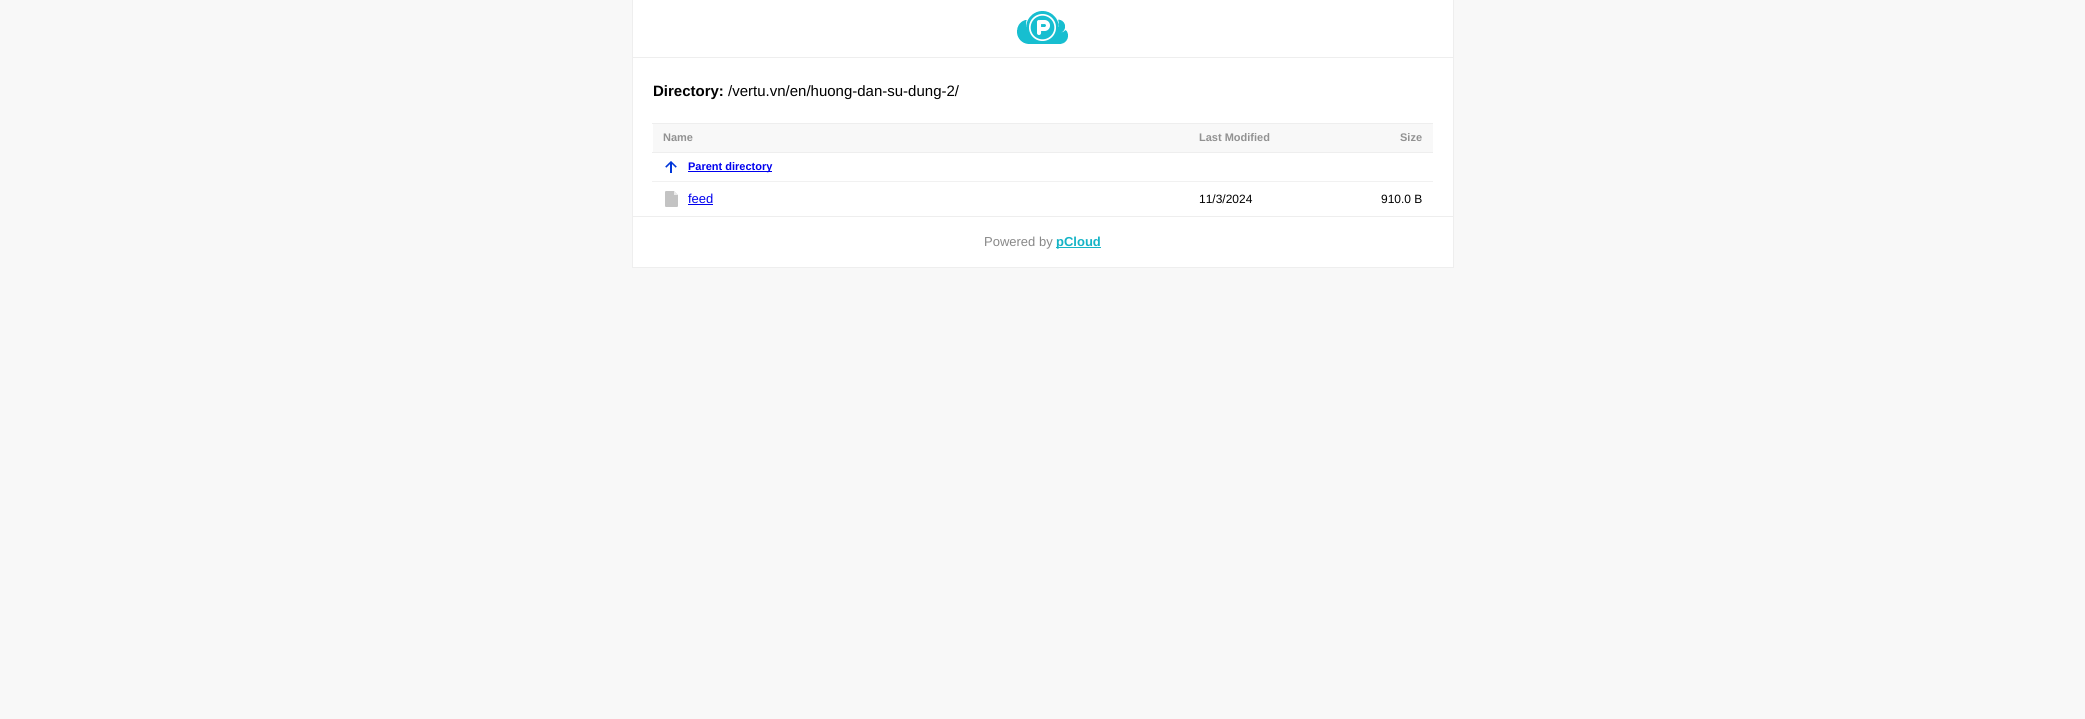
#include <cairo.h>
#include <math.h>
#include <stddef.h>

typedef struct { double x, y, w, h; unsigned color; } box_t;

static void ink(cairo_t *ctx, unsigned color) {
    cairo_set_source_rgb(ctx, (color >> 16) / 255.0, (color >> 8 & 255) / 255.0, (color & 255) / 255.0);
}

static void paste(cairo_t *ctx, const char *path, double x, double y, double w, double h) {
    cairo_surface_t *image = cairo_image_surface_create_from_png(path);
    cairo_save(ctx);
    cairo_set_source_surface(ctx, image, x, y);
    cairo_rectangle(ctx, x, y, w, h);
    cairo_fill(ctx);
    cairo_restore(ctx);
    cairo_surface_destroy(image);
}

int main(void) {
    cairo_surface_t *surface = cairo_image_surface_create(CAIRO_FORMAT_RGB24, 2085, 719);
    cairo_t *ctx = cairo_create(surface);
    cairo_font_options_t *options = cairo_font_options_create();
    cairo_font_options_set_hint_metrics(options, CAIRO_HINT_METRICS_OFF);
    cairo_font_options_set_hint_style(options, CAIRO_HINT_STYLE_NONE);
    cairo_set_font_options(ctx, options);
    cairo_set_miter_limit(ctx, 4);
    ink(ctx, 0xF8F8F8);
    cairo_paint(ctx);
    {
        static const box_t items[] = {
            {633, 0, 820, 267, 0xFFFFFF},
            {1453, 0, 1, 268, 0xEEEEEE},
            {632, 0, 1, 268, 0xEEEEEE},
            {633, 57, 820, 1, 0xEEEEEE},
        };
        for (size_t i = 0; i < sizeof items / sizeof *items; i++) {
            ink(ctx, items[i].color);
            cairo_rectangle(ctx, items[i].x, items[i].y, items[i].w, items[i].h);
            cairo_fill(ctx);
        }
    }
    paste(ctx, "media/1.png", 1017, 11, 51, 33);
    cairo_select_font_face(ctx, "Liberation Sans", CAIRO_FONT_SLANT_NORMAL, CAIRO_FONT_WEIGHT_BOLD);
    cairo_set_font_size(ctx, 15);
    ink(ctx, 0x000000);
    cairo_move_to(ctx, 653, 96);
    cairo_show_text(ctx, "Directory:");
    cairo_select_font_face(ctx, "Liberation Sans", CAIRO_FONT_SLANT_NORMAL, CAIRO_FONT_WEIGHT_NORMAL);
    cairo_move_to(ctx, 728, 96);
    cairo_show_text(ctx, "/vertu.vn/en/huong-dan-su-dung-2/");
    ink(ctx, 0xF8F8F8);
    cairo_rectangle(ctx, 653, 124, 780, 28);
    cairo_fill(ctx);
    cairo_select_font_face(ctx, "Liberation Sans", CAIRO_FONT_SLANT_NORMAL, CAIRO_FONT_WEIGHT_BOLD);
    cairo_set_font_size(ctx, 11);
    ink(ctx, 0x929292);
    cairo_move_to(ctx, 663, 141);
    cairo_show_text(ctx, "Name");
    cairo_move_to(ctx, 1199, 141);
    cairo_show_text(ctx, "Last Modified");
    ink(ctx, 0xEEEEEE);
    cairo_rectangle(ctx, 652, 123, 781, 1);
    cairo_fill(ctx);
    cairo_rectangle(ctx, 652, 152, 781, 1);
    cairo_fill(ctx);
    ink(ctx, 0x929292);
    cairo_move_to(ctx, 1400, 141);
    cairo_show_text(ctx, "Size");
    paste(ctx, "media/2.png", 665, 161, 12, 12);
    ink(ctx, 0x0000EE);
    cairo_rectangle(ctx, 688, 171, 84, 1);
    cairo_fill(ctx);
    cairo_move_to(ctx, 688, 170);
    cairo_show_text(ctx, "Parent directory");
    ink(ctx, 0xF1F1F1);
    cairo_rectangle(ctx, 652, 181, 781, 1);
    cairo_fill(ctx);
    paste(ctx, "media/3.png", 665, 191, 13, 16);
    cairo_select_font_face(ctx, "Liberation Sans", CAIRO_FONT_SLANT_NORMAL, CAIRO_FONT_WEIGHT_NORMAL);
    cairo_set_font_size(ctx, 13);
    ink(ctx, 0x0000EE);
    cairo_move_to(ctx, 688, 203);
    cairo_show_text(ctx, "feed");
    cairo_rectangle(ctx, 688, 204, 25, 1);
    cairo_fill(ctx);
    cairo_set_font_size(ctx, 12);
    ink(ctx, 0x000000);
    cairo_move_to(ctx, 1199, 203);
    cairo_show_text(ctx, "11/3/2024");
    cairo_move_to(ctx, 1381, 203);
    cairo_show_text(ctx, "910.0 B");
    ink(ctx, 0xEEEEEE);
    cairo_rectangle(ctx, 633, 216, 820, 1);
    cairo_fill(ctx);
    cairo_rectangle(ctx, 633, 267, 820, 1);
    cairo_fill(ctx);
    cairo_set_font_size(ctx, 13);
    ink(ctx, 0x888888);
    cairo_move_to(ctx, 984, 246);
    cairo_show_text(ctx, "Powered by");
    ink(ctx, 0x15B4C6);
    cairo_rectangle(ctx, 1056, 247, 45, 1);
    cairo_fill(ctx);
    cairo_select_font_face(ctx, "Liberation Sans", CAIRO_FONT_SLANT_NORMAL, CAIRO_FONT_WEIGHT_BOLD);
    cairo_move_to(ctx, 1056, 246);
    cairo_show_text(ctx, "pCloud");
    cairo_surface_write_to_png(surface, "image.png");
    cairo_font_options_destroy(options);
    cairo_destroy(ctx);
    cairo_surface_destroy(surface);
    return 0;
}
